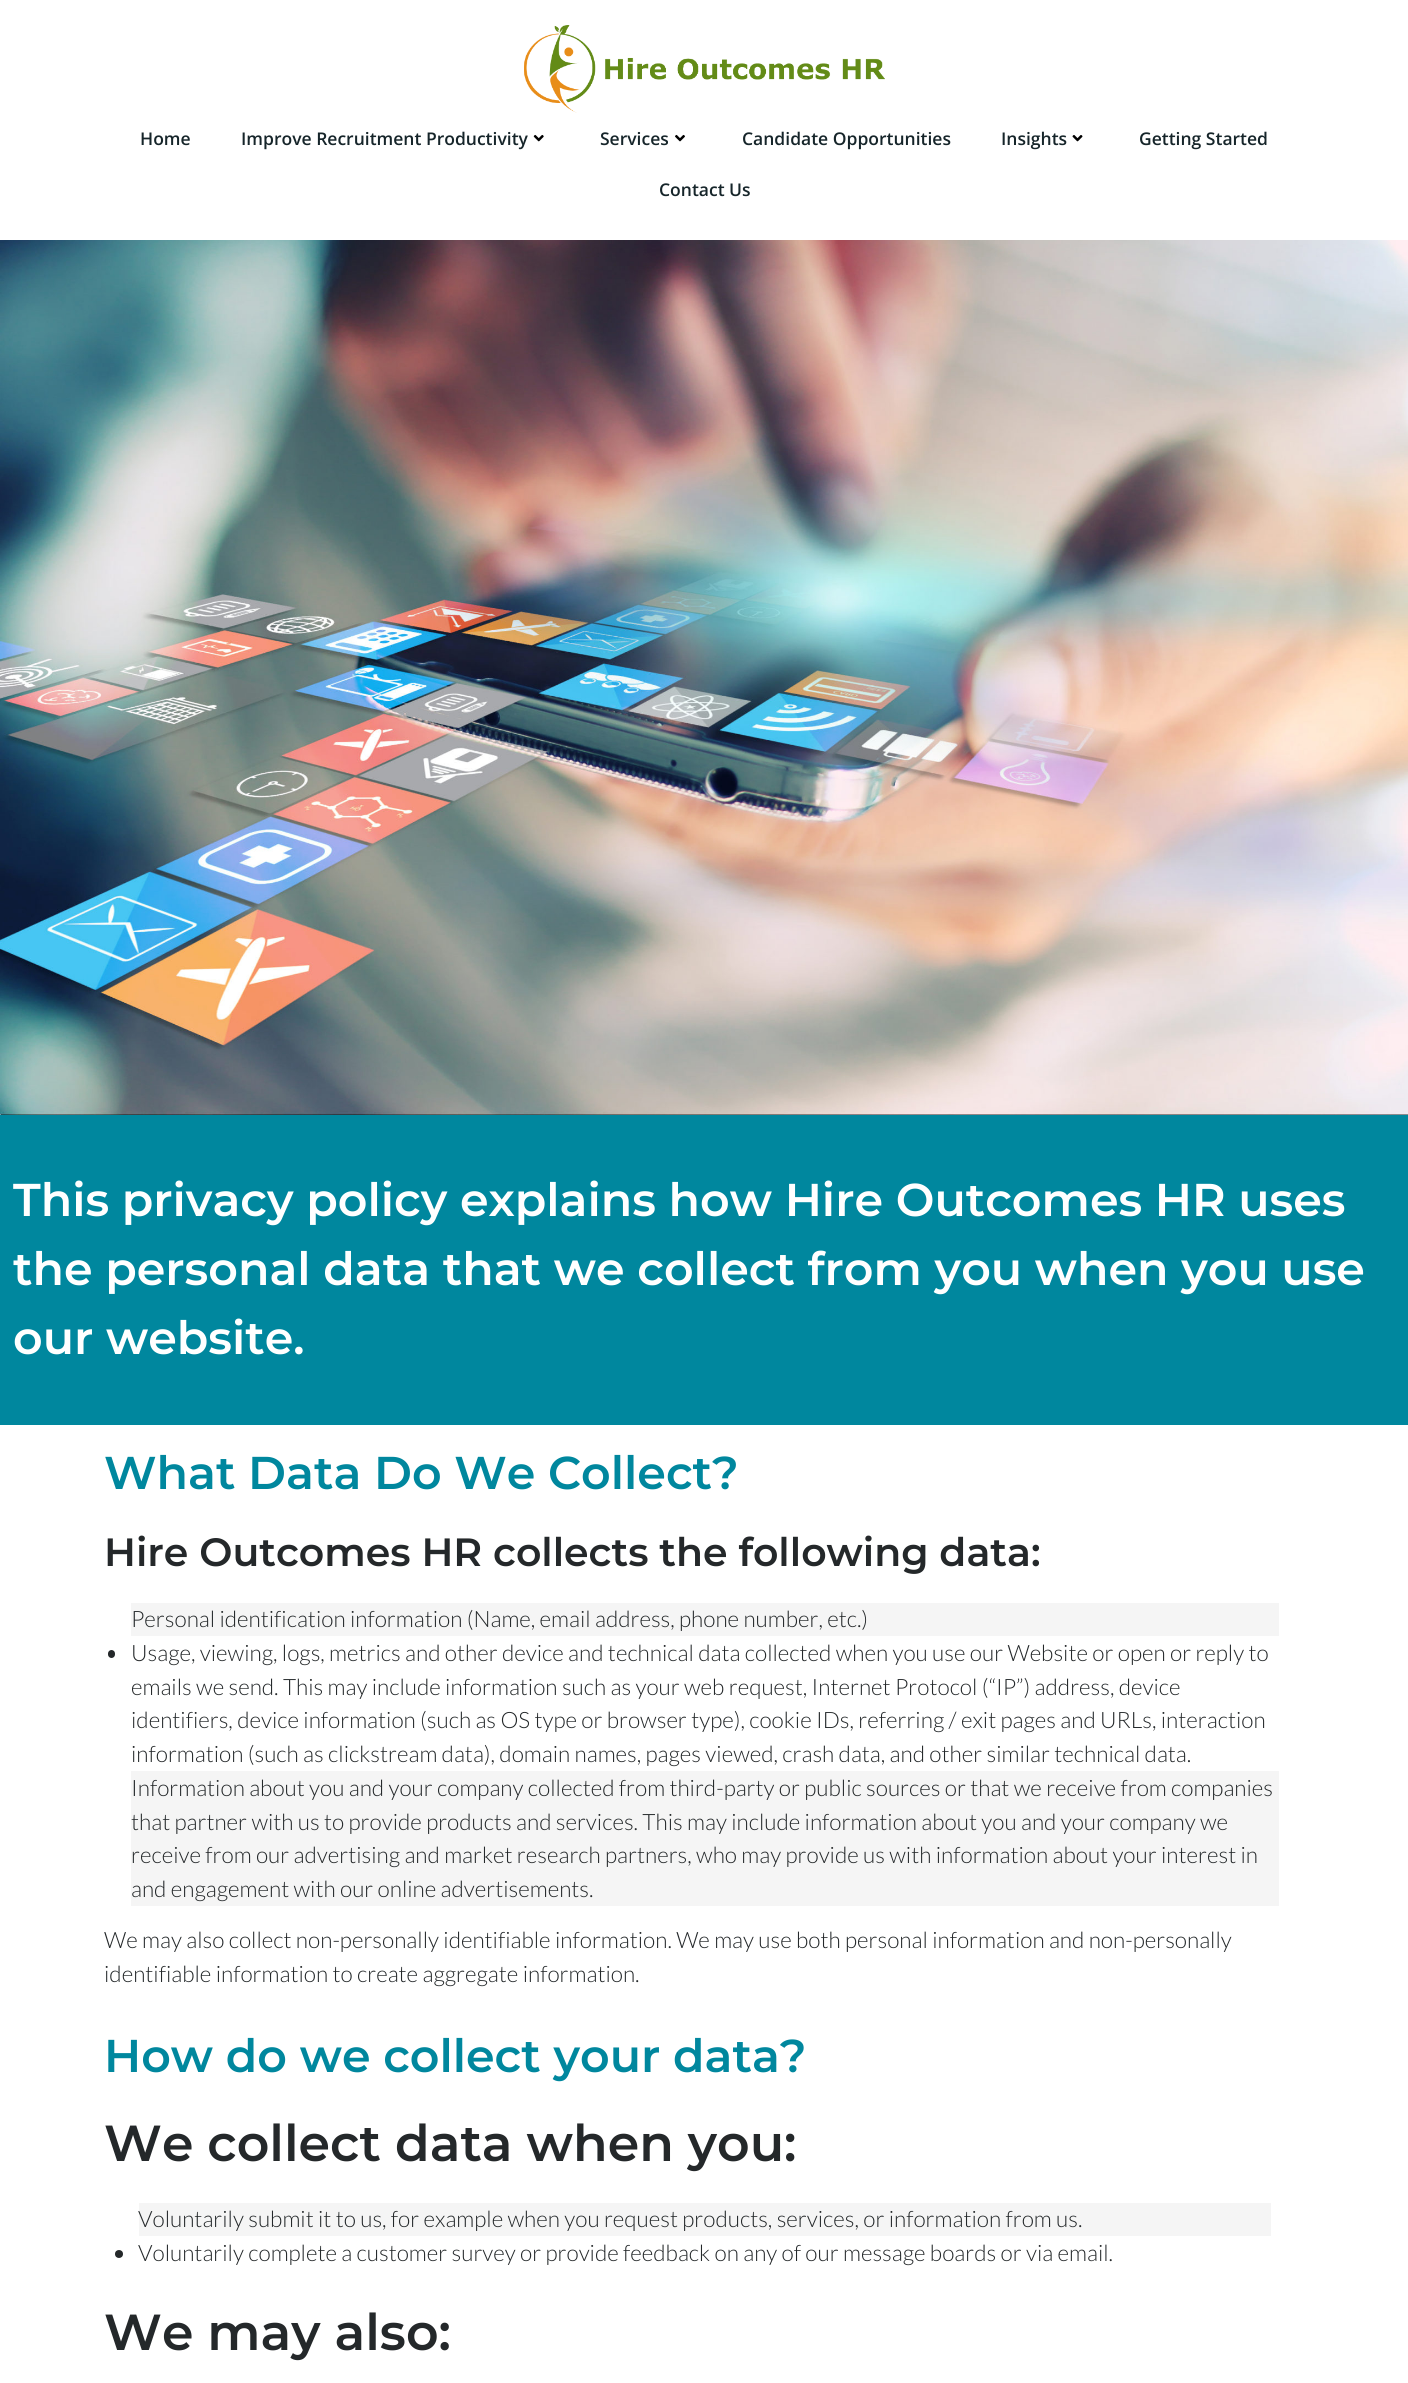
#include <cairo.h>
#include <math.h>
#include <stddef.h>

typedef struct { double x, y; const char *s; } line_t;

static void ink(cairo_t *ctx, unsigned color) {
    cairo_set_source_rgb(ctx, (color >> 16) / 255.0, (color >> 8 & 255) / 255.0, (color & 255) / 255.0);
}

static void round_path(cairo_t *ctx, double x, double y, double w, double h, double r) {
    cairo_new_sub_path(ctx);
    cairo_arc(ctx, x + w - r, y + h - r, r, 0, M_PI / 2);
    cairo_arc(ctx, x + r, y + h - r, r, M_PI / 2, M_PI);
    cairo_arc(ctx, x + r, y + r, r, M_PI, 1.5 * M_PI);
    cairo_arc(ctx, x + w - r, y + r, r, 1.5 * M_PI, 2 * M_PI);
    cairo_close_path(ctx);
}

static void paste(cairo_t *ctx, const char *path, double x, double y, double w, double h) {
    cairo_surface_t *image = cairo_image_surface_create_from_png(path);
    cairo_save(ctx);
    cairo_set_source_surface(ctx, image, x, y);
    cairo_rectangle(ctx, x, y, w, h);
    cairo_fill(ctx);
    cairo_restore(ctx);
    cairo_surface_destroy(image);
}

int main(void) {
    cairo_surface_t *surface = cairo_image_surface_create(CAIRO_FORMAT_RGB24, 1408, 2383);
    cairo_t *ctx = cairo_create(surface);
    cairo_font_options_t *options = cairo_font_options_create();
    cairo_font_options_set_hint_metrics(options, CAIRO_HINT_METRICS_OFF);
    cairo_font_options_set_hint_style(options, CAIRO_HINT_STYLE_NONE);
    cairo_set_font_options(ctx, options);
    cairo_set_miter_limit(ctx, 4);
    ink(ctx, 0xFFFFFF);
    cairo_paint(ctx);
    paste(ctx, "media/1.png", 524, 25, 361, 88);
    cairo_select_font_face(ctx, "Open Sans SemiBold", CAIRO_FONT_SLANT_NORMAL, CAIRO_FONT_WEIGHT_NORMAL);
    cairo_set_font_size(ctx, 17.5);
    ink(ctx, 0x16252A);
    cairo_move_to(ctx, 140, 145);
    cairo_show_text(ctx, "Home");
    cairo_move_to(ctx, 241, 145);
    cairo_show_text(ctx, "Improve Recruitment Productivity");
    paste(ctx, "media/2.png", 533, 134, 11, 8);
    cairo_move_to(ctx, 600, 145);
    cairo_show_text(ctx, "Services");
    paste(ctx, "media/3.png", 675, 134, 10, 8);
    cairo_move_to(ctx, 742, 145);
    cairo_show_text(ctx, "Candidate Opportunities");
    cairo_move_to(ctx, 1001, 145);
    cairo_show_text(ctx, "Insights");
    paste(ctx, "media/4.png", 1072, 135, 11, 7);
    cairo_move_to(ctx, 1139, 145);
    cairo_show_text(ctx, "Getting Started");
    cairo_move_to(ctx, 659, 196);
    cairo_show_text(ctx, "Contact Us");
    paste(ctx, "media/5.png", 0, 240, 1408, 875);
    ink(ctx, 0x00879E);
    cairo_rectangle(ctx, 0, 1115, 1408, 310);
    cairo_fill(ctx);
    cairo_select_font_face(ctx, "Montserrat SemiBold", CAIRO_FONT_SLANT_NORMAL, CAIRO_FONT_WEIGHT_NORMAL);
    cairo_set_font_size(ctx, 45.95);
    ink(ctx, 0xFFFFFF);
    {
        static const line_t items[] = {
            {13, 1216, "This privacy policy explains how Hire Outcomes HR uses"},
            {13, 1285, "the personal data that we collect from you when you use"},
            {13, 1354, "our website."},
        };
        for (size_t i = 0; i < sizeof items / sizeof *items; i++) {
            cairo_move_to(ctx, items[i].x, items[i].y);
            cairo_show_text(ctx, items[i].s);
        }
    }
    ink(ctx, 0x00879E);
    cairo_move_to(ctx, 104, 1489);
    cairo_show_text(ctx, "What Data Do We Collect?");
    cairo_set_font_size(ctx, 39.4);
    ink(ctx, 0x24282A);
    cairo_move_to(ctx, 104, 1566);
    cairo_show_text(ctx, "Hire Outcomes HR collects the following data:");
    ink(ctx, 0xF5F5F5);
    cairo_rectangle(ctx, 131, 1603, 1148, 33);
    cairo_fill(ctx);
    cairo_select_font_face(ctx, "Lato Light", CAIRO_FONT_SLANT_NORMAL, CAIRO_FONT_WEIGHT_NORMAL);
    cairo_set_font_size(ctx, 22.5);
    ink(ctx, 0x24282A);
    cairo_move_to(ctx, 131, 1627);
    cairo_show_text(ctx, "Personal identification information (Name, email address, phone number, etc.)");
    round_path(ctx, 108, 1650, 7, 8, 3.5);
    cairo_fill(ctx);
    {
        static const line_t items[] = {
            {131, 1661, "Usage, viewing, logs, metrics and other device and technical data collected when you use our Website or open or reply to"},
            {131, 1695, "emails we send. This may include information such as your web request, Internet Protocol (“IP”) address, device"},
            {131, 1728, "identifiers, device information (such as OS type or browser type), cookie IDs, referring / exit pages and URLs, interaction"},
            {131, 1762, "information (such as clickstream data), domain names, pages viewed, crash data, and other similar technical data."},
        };
        for (size_t i = 0; i < sizeof items / sizeof *items; i++) {
            cairo_move_to(ctx, items[i].x, items[i].y);
            cairo_show_text(ctx, items[i].s);
        }
    }
    ink(ctx, 0xF5F5F5);
    cairo_rectangle(ctx, 131, 1771, 1148, 135);
    cairo_fill(ctx);
    ink(ctx, 0x24282A);
    {
        static const line_t items[] = {
            {131, 1796, "Information about you and your company collected from third-party or public sources or that we receive from companies"},
            {131, 1830, "that partner with us to provide products and services. This may include information about you and your company we"},
            {131, 1863, "receive from our advertising and market research partners, who may provide us with information about your interest in"},
            {131, 1897, "and engagement with our online advertisements."},
            {104, 1948, "We may also collect non-personally identifiable information. We may use both personal information and non-personally"},
            {104, 1982, "identifiable information to create aggregate information."},
        };
        for (size_t i = 0; i < sizeof items / sizeof *items; i++) {
            cairo_move_to(ctx, items[i].x, items[i].y);
            cairo_show_text(ctx, items[i].s);
        }
    }
    cairo_select_font_face(ctx, "Montserrat SemiBold", CAIRO_FONT_SLANT_NORMAL, CAIRO_FONT_WEIGHT_NORMAL);
    cairo_set_font_size(ctx, 45.95);
    ink(ctx, 0x00879E);
    cairo_move_to(ctx, 104, 2072);
    cairo_show_text(ctx, "How do we collect your data?");
    cairo_set_font_size(ctx, 50.6);
    ink(ctx, 0x24282A);
    cairo_move_to(ctx, 104, 2161);
    cairo_show_text(ctx, "We collect data when you:");
    ink(ctx, 0xF5F5F5);
    cairo_rectangle(ctx, 139, 2203, 1132, 33);
    cairo_fill(ctx);
    cairo_select_font_face(ctx, "Lato Light", CAIRO_FONT_SLANT_NORMAL, CAIRO_FONT_WEIGHT_NORMAL);
    cairo_set_font_size(ctx, 22.5);
    ink(ctx, 0x24282A);
    cairo_move_to(ctx, 138, 2227);
    cairo_show_text(ctx, "Voluntarily submit it to us, for example when you request products, services, or information from us.");
    cairo_new_path(ctx);
    cairo_arc(ctx, 119, 2254, 4, 0, 2 * M_PI);
    cairo_fill(ctx);
    cairo_move_to(ctx, 138, 2261);
    cairo_show_text(ctx, "Voluntarily complete a customer survey or provide feedback on any of our message boards or via email.");
    cairo_select_font_face(ctx, "Montserrat SemiBold", CAIRO_FONT_SLANT_NORMAL, CAIRO_FONT_WEIGHT_NORMAL);
    cairo_set_font_size(ctx, 50.6);
    cairo_move_to(ctx, 104, 2350);
    cairo_show_text(ctx, "We may also:");
    cairo_surface_write_to_png(surface, "image.png");
    cairo_font_options_destroy(options);
    cairo_destroy(ctx);
    cairo_surface_destroy(surface);
    return 0;
}
